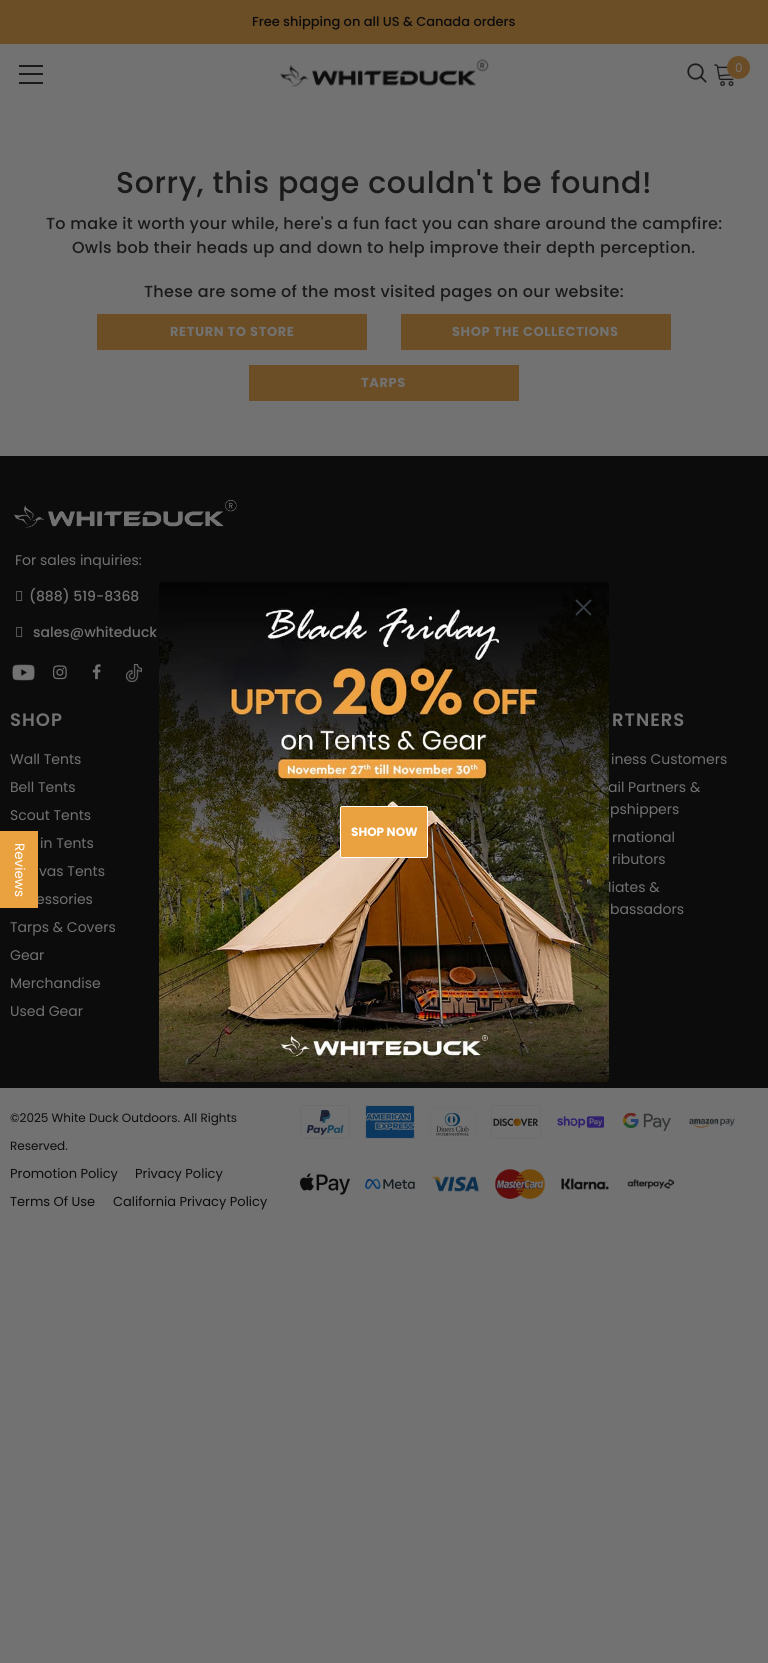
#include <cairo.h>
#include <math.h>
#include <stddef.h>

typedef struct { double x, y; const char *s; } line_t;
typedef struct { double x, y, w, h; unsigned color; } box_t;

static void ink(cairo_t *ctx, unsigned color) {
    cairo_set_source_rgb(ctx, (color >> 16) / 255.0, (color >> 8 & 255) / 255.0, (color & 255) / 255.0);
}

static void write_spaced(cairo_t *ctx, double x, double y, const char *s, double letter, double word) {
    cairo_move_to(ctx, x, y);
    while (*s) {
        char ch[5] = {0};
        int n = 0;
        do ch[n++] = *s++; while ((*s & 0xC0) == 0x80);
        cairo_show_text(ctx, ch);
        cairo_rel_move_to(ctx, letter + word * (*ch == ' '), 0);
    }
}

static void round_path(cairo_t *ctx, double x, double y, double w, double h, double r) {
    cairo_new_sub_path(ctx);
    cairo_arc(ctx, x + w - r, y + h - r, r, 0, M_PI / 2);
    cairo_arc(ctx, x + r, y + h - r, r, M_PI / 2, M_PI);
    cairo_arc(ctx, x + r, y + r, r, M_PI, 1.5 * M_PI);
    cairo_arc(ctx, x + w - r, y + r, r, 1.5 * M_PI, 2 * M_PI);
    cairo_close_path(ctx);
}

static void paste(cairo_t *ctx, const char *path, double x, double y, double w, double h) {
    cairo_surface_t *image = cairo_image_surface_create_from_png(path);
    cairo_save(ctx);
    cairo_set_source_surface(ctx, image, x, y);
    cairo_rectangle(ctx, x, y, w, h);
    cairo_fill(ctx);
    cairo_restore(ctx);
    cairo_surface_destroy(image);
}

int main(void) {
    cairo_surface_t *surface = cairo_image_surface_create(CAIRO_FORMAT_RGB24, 768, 1663);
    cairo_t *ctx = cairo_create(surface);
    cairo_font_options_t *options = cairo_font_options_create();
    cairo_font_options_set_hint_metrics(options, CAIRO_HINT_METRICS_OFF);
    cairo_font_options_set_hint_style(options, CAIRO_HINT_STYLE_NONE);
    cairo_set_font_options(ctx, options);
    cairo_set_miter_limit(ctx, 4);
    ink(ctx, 0x727272);
    cairo_paint(ctx);
    ink(ctx, 0x6B4D26);
    cairo_rectangle(ctx, 0, 0, 768, 44);
    cairo_fill(ctx);
    cairo_select_font_face(ctx, "Poppins Medium", CAIRO_FONT_SLANT_NORMAL, CAIRO_FONT_WEIGHT_NORMAL);
    cairo_set_font_size(ctx, 13);
    ink(ctx, 0x0C0C0C);
    cairo_move_to(ctx, 252, 26);
    cairo_show_text(ctx, "Free shipping on all US & Canada orders");
    {
        static const box_t items[] = {
            {19, 65, 24, 2, 0x1A1A1A},
            {19, 73, 24, 2, 0x1A1A1A},
            {19, 82, 24, 2, 0x1A1A1A},
        };
        for (size_t i = 0; i < sizeof items / sizeof *items; i++) {
            ink(ctx, items[i].color);
            cairo_rectangle(ctx, items[i].x, items[i].y, items[i].w, items[i].h);
            cairo_fill(ctx);
        }
    }
    paste(ctx, "media/1.png", 280, 59, 209, 28);
    paste(ctx, "media/2.png", 687, 63, 20, 20);
    paste(ctx, "media/3.png", 714, 64, 20, 22);
    ink(ctx, 0x6A4D26);
    cairo_arc(ctx, 738.5, 67.5, 11.5, 0, 2 * M_PI);
    cairo_fill(ctx);
    cairo_select_font_face(ctx, "Poppins", CAIRO_FONT_SLANT_NORMAL, CAIRO_FONT_WEIGHT_NORMAL);
    cairo_set_font_size(ctx, 12);
    ink(ctx, 0x727272);
    cairo_move_to(ctx, 735, 72);
    cairo_show_text(ctx, "0");
    cairo_select_font_face(ctx, "Poppins Medium", CAIRO_FONT_SLANT_NORMAL, CAIRO_FONT_WEIGHT_NORMAL);
    cairo_set_font_size(ctx, 30);
    ink(ctx, 0x1A1A1A);
    write_spaced(ctx, 116, 193, "Sorry, this page couldn't be found!", 0.6, 0);
    cairo_set_font_size(ctx, 16);
    {
        static const line_t items[] = {
            {46, 229, "To make it worth your while, here's a fun fact you can share around the campfire:"},
            {72, 253, "Owls bob their heads up and down to help improve their depth perception."},
            {144, 297, "These are some of the most visited pages on our website:"},
        };
        for (size_t i = 0; i < sizeof items / sizeof *items; i++) {
            write_spaced(ctx, items[i].x, items[i].y, items[i].s, 0.32, 0);
        }
    }
    ink(ctx, 0x6B4D26);
    cairo_rectangle(ctx, 97, 314, 270, 36);
    cairo_fill(ctx);
    cairo_select_font_face(ctx, "Poppins", CAIRO_FONT_SLANT_NORMAL, CAIRO_FONT_WEIGHT_BOLD);
    cairo_set_font_size(ctx, 13);
    ink(ctx, 0x727272);
    write_spaced(ctx, 170, 336, "RETURN TO STORE", 0.6, 0);
    ink(ctx, 0x6B4D26);
    cairo_rectangle(ctx, 401, 314, 270, 36);
    cairo_fill(ctx);
    ink(ctx, 0x727272);
    write_spaced(ctx, 452, 336, "SHOP THE COLLECTIONS", 0.6, 0);
    ink(ctx, 0x6B4D26);
    cairo_rectangle(ctx, 249, 365, 270, 36);
    cairo_fill(ctx);
    ink(ctx, 0x727272);
    write_spaced(ctx, 361, 387, "TARPS", 0.6, 0);
    ink(ctx, 0x0C0C0C);
    cairo_rectangle(ctx, 0, 456, 768, 632);
    cairo_fill(ctx);
    paste(ctx, "media/4.png", 13, 499, 224, 29);
    cairo_select_font_face(ctx, "Poppins", CAIRO_FONT_SLANT_NORMAL, CAIRO_FONT_WEIGHT_NORMAL);
    cairo_set_font_size(ctx, 14);
    ink(ctx, 0x727272);
    cairo_move_to(ctx, 15, 565);
    cairo_show_text(ctx, "For sales inquiries:");
    paste(ctx, "media/5.png", 16, 591, 7, 10);
    cairo_select_font_face(ctx, "Poppins Medium", CAIRO_FONT_SLANT_NORMAL, CAIRO_FONT_WEIGHT_NORMAL);
    cairo_move_to(ctx, 29, 601);
    cairo_show_text(ctx, "(888) 519-8368");
    paste(ctx, "media/5.png", 16, 627, 7, 10);
    cairo_move_to(ctx, 33, 637);
    cairo_show_text(ctx, "sales@whiteduck");
    paste(ctx, "media/6.png", 12, 664, 23, 17);
    paste(ctx, "media/7.png", 53, 665, 14, 15);
    paste(ctx, "media/8.png", 92, 664, 9, 16);
    paste(ctx, "media/9.png", 126, 664, 16, 18);
    cairo_select_font_face(ctx, "Poppins SemiBold", CAIRO_FONT_SLANT_NORMAL, CAIRO_FONT_WEIGHT_NORMAL);
    cairo_set_font_size(ctx, 18);
    write_spaced(ctx, 10, 726, "SHOP", 1, 0);
    cairo_select_font_face(ctx, "Poppins", CAIRO_FONT_SLANT_NORMAL, CAIRO_FONT_WEIGHT_NORMAL);
    cairo_set_font_size(ctx, 14);
    {
        static const line_t items[] = {
            {10, 764, "Wall Tents"},
            {10, 792, "Bell Tents"},
            {10, 820, "Scout Tents"},
            {40, 848, "in Tents"},
            {39, 876, "vas Tents"},
            {36, 904, "essories"},
            {10, 932, "Tarps & Covers"},
            {10, 960, "Gear"},
            {10, 988, "Merchandise"},
            {10, 1016, "Used Gear"},
        };
        for (size_t i = 0; i < sizeof items / sizeof *items; i++) {
            cairo_move_to(ctx, items[i].x, items[i].y);
            cairo_show_text(ctx, items[i].s);
        }
    }
    cairo_select_font_face(ctx, "Poppins SemiBold", CAIRO_FONT_SLANT_NORMAL, CAIRO_FONT_WEIGHT_NORMAL);
    cairo_set_font_size(ctx, 18);
    write_spaced(ctx, 612, 726, "RTNERS", 1, 0);
    cairo_select_font_face(ctx, "Poppins", CAIRO_FONT_SLANT_NORMAL, CAIRO_FONT_WEIGHT_NORMAL);
    cairo_set_font_size(ctx, 14);
    {
        static const line_t items[] = {
            {611, 764, "iness Customers"},
            {608, 792, "ail Partners &"},
            {610, 814, "pshippers"},
            {612, 842, "rnational"},
            {612, 864, "ributors"},
            {608, 892, "liates &"},
            {610, 914, "bassadors"},
        };
        for (size_t i = 0; i < sizeof items / sizeof *items; i++) {
            cairo_move_to(ctx, items[i].x, items[i].y);
            cairo_show_text(ctx, items[i].s);
        }
    }
    cairo_set_font_size(ctx, 12);
    ink(ctx, 0x0C0C0C);
    cairo_move_to(ctx, 10, 1122);
    cairo_show_text(ctx, "©2025 White Duck Outdoors. All Rights");
    cairo_move_to(ctx, 10, 1150);
    cairo_show_text(ctx, "Reserved.");
    cairo_set_font_size(ctx, 13);
    {
        static const line_t items[] = {
            {10, 1178, "Promotion Policy"},
            {135, 1178, "Privacy Policy"},
            {10, 1206, "Terms Of Use"},
            {113, 1206, "California Privacy Policy"},
        };
        for (size_t i = 0; i < sizeof items / sizeof *items; i++) {
            cairo_move_to(ctx, items[i].x, items[i].y);
            cairo_show_text(ctx, items[i].s);
        }
    }
    paste(ctx, "media/10.png", 300, 1105, 50, 34);
    paste(ctx, "media/11.png", 365, 1105, 50, 34);
    paste(ctx, "media/12.png", 430, 1108, 46, 32);
    paste(ctx, "media/13.png", 491, 1105, 50, 34);
    paste(ctx, "media/14.png", 557, 1116, 47, 12);
    paste(ctx, "media/15.png", 623, 1113, 48, 18);
    paste(ctx, "media/16.png", 689, 1118, 46, 10);
    paste(ctx, "media/17.png", 300, 1173, 50, 22);
    paste(ctx, "media/18.png", 365, 1179, 50, 10);
    paste(ctx, "media/19.png", 431, 1176, 48, 16);
    paste(ctx, "media/20.png", 495, 1169, 50, 30);
    paste(ctx, "media/21.png", 561, 1178, 48, 12);
    paste(ctx, "media/22.png", 627, 1179, 48, 10);
    paste(ctx, "media/24.png", 159, 582, 450, 500);
    paste(ctx, "media/23.png", 575, 599, 17, 17);
    ink(ctx, 0xEAA241);
    round_path(ctx, 340.5, 806.5, 87, 51, 1.5);
    cairo_fill_preserve(ctx);
    ink(ctx, 0xFFFFFF);
    cairo_set_line_width(ctx, 1);
    cairo_stroke(ctx);
    cairo_select_font_face(ctx, "Poppins", CAIRO_FONT_SLANT_NORMAL, CAIRO_FONT_WEIGHT_BOLD);
    cairo_set_font_size(ctx, 12);
    cairo_move_to(ctx, 351, 836);
    cairo_show_text(ctx, "SHOP NOW");
    ink(ctx, 0xEAA241);
    cairo_rectangle(ctx, 0, 831, 38, 77);
    cairo_fill(ctx);
    cairo_select_font_face(ctx, "Poppins", CAIRO_FONT_SLANT_NORMAL, CAIRO_FONT_WEIGHT_NORMAL);
    cairo_set_font_size(ctx, 13.5);
    ink(ctx, 0xFFFFFF);
    cairo_save(ctx);
    cairo_translate(ctx, 15, 843);
    cairo_rotate(ctx, 90 * M_PI / 180);
    cairo_move_to(ctx, 0, 0);
    cairo_show_text(ctx, "Reviews");
    cairo_restore(ctx);
    cairo_surface_write_to_png(surface, "image.png");
    cairo_font_options_destroy(options);
    cairo_destroy(ctx);
    cairo_surface_destroy(surface);
    return 0;
}
